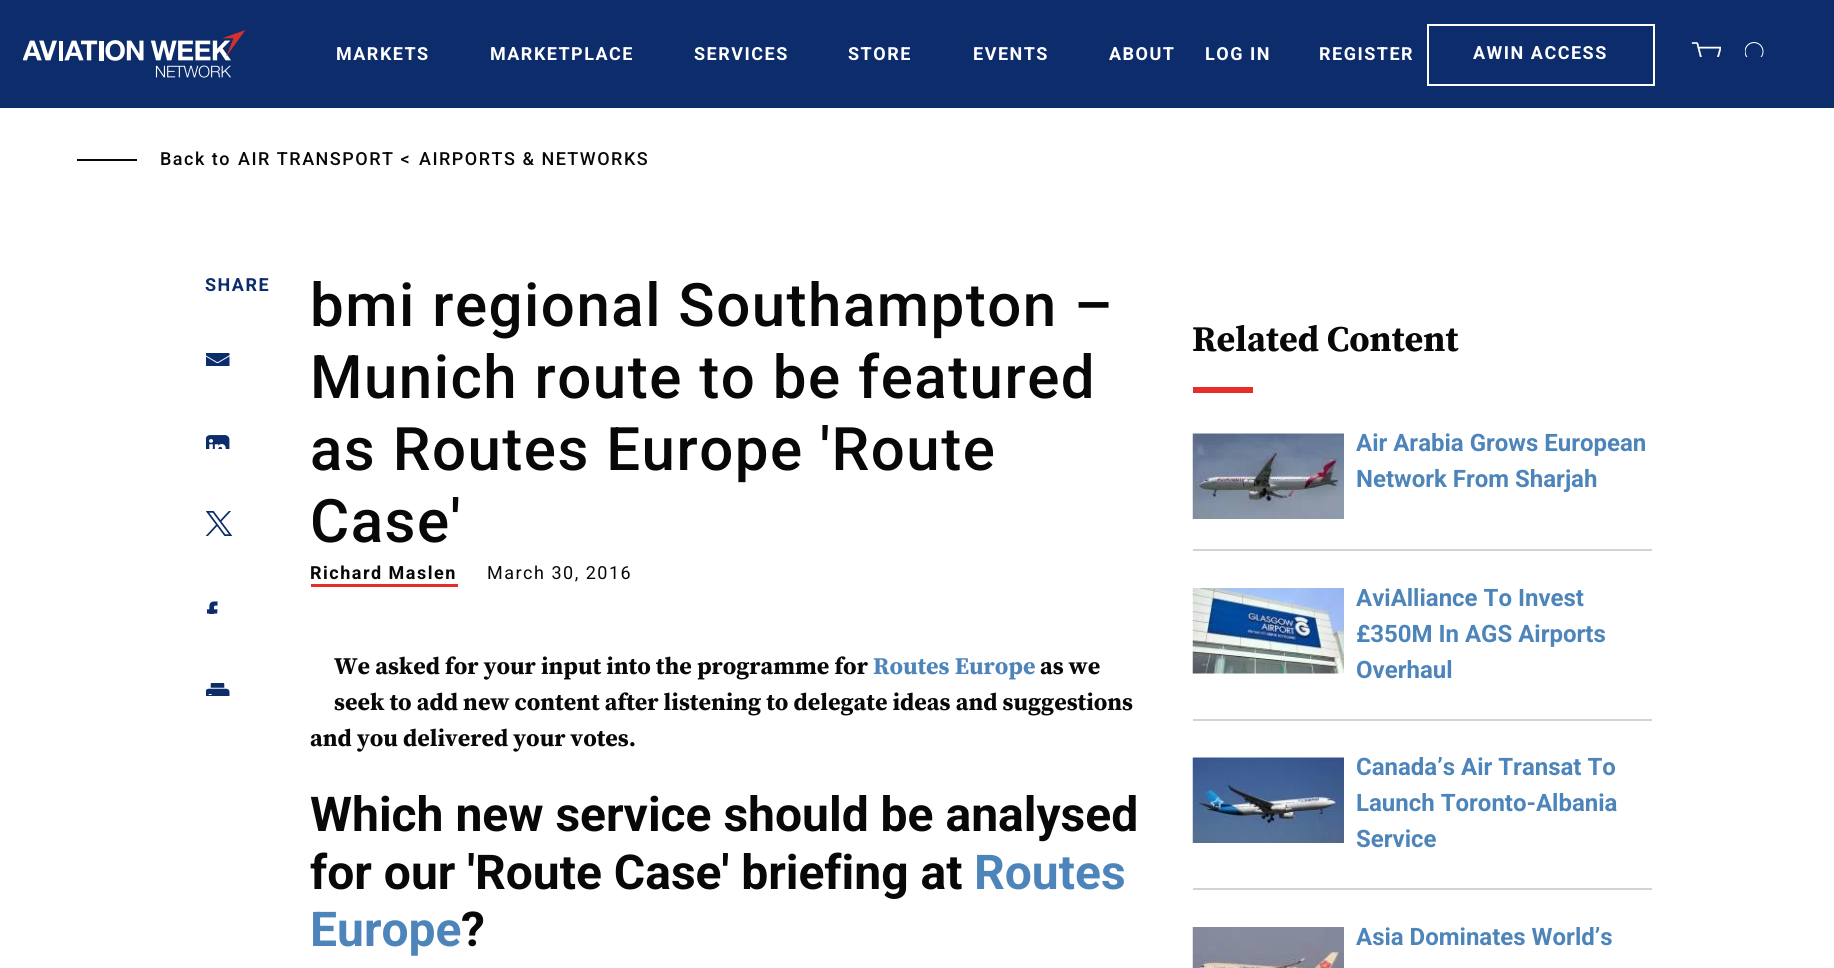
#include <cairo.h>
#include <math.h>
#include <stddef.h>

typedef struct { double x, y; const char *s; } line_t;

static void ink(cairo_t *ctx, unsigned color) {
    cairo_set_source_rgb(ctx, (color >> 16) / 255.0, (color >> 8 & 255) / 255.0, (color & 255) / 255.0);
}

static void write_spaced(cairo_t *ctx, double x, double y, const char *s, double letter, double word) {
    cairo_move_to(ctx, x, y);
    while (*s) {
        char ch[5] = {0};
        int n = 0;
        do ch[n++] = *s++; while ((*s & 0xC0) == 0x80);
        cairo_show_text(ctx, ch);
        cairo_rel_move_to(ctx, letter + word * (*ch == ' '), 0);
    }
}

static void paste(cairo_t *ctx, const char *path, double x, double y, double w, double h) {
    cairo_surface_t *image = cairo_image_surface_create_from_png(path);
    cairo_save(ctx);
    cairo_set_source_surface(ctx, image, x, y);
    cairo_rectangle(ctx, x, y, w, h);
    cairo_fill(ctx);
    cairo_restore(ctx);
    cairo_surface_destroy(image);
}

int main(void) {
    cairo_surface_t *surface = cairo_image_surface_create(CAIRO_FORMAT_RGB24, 1834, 968);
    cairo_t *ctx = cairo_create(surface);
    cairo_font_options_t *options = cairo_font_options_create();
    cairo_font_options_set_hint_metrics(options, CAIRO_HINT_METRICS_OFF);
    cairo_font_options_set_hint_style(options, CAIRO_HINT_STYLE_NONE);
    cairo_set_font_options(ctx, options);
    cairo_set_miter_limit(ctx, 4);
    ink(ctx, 0xFFFFFF);
    cairo_paint(ctx);
    ink(ctx, 0x0D2C6B);
    cairo_rectangle(ctx, 0, 0, 1834, 108);
    cairo_fill(ctx);
    paste(ctx, "media/1.png", 23, 30, 223, 48);
    cairo_select_font_face(ctx, "Roboto", CAIRO_FONT_SLANT_NORMAL, CAIRO_FONT_WEIGHT_BOLD);
    cairo_set_font_size(ctx, 18);
    ink(ctx, 0xFFFFFF);
    {
        static const line_t items[] = {
            {336, 60, "MARKETS"},
            {490, 60, "MARKETPLACE"},
            {694, 60, "SERVICES"},
            {848, 60, "STORE"},
            {973, 60, "EVENTS"},
            {1109, 60, "ABOUT"},
            {1205, 60, "LOG IN"},
            {1319, 60, "REGISTER"},
        };
        for (size_t i = 0; i < sizeof items / sizeof *items; i++) {
            write_spaced(ctx, items[i].x, items[i].y, items[i].s, 1.5, 0);
        }
    }
    cairo_rectangle(ctx, 1428, 25, 226, 60);
    cairo_stroke(ctx);
    write_spaced(ctx, 1473, 59, "AWIN ACCESS", 1.5, 0);
    paste(ctx, "media/2.png", 1691, 42, 30, 15);
    paste(ctx, "media/3.png", 1745, 42, 19, 15);
    ink(ctx, 0x080808);
    cairo_rectangle(ctx, 77, 159, 60, 2);
    cairo_fill(ctx);
    cairo_select_font_face(ctx, "Roboto Medium", CAIRO_FONT_SLANT_NORMAL, CAIRO_FONT_WEIGHT_NORMAL);
    {
        static const line_t items[] = {
            {160, 165, "Back to"},
            {238, 165, "AIR TRANSPORT <"},
            {419, 165, "AIRPORTS & NETWORKS"},
        };
        for (size_t i = 0; i < sizeof items / sizeof *items; i++) {
            write_spaced(ctx, items[i].x, items[i].y, items[i].s, 1.5, 0);
        }
    }
    cairo_select_font_face(ctx, "Roboto", CAIRO_FONT_SLANT_NORMAL, CAIRO_FONT_WEIGHT_BOLD);
    ink(ctx, 0x0D2C6B);
    write_spaced(ctx, 205, 291, "SHARE", 1.5, 0);
    paste(ctx, "media/4.png", 206, 353, 24, 13);
    paste(ctx, "media/5.png", 206, 435, 24, 14);
    paste(ctx, "media/6.png", 206, 511, 27, 25);
    paste(ctx, "media/7.png", 206, 601, 12, 13);
    paste(ctx, "media/8.png", 206, 683, 24, 13);
    cairo_select_font_face(ctx, "Roboto Medium", CAIRO_FONT_SLANT_NORMAL, CAIRO_FONT_WEIGHT_NORMAL);
    cairo_set_font_size(ctx, 60);
    ink(ctx, 0x080808);
    {
        static const line_t items[] = {
            {310, 326, "bmi regional Southampton –"},
            {310, 398, "Munich route to be featured"},
            {310, 470, "as Routes Europe 'Route"},
            {310, 542, "Case'"},
        };
        for (size_t i = 0; i < sizeof items / sizeof *items; i++) {
            write_spaced(ctx, items[i].x, items[i].y, items[i].s, 1.5, 0);
        }
    }
    cairo_select_font_face(ctx, "Roboto", CAIRO_FONT_SLANT_NORMAL, CAIRO_FONT_WEIGHT_BOLD);
    cairo_set_font_size(ctx, 18);
    write_spaced(ctx, 310, 579, "Richard Maslen", 1.5, 0);
    ink(ctx, 0xE72C2A);
    cairo_rectangle(ctx, 311, 584, 147, 3);
    cairo_fill(ctx);
    cairo_select_font_face(ctx, "Roboto", CAIRO_FONT_SLANT_NORMAL, CAIRO_FONT_WEIGHT_NORMAL);
    ink(ctx, 0x080808);
    write_spaced(ctx, 487, 579, "March 30, 2016", 1.5, 0);
    cairo_select_font_face(ctx, "Source Serif Pro", CAIRO_FONT_SLANT_NORMAL, CAIRO_FONT_WEIGHT_BOLD);
    cairo_set_font_size(ctx, 24);
    cairo_move_to(ctx, 334, 674);
    cairo_show_text(ctx, "We asked for your input into the programme for");
    ink(ctx, 0x4D85BA);
    cairo_move_to(ctx, 873, 674);
    cairo_show_text(ctx, "Routes Europe");
    ink(ctx, 0x080808);
    {
        static const line_t items[] = {
            {1040, 674, "as we"},
            {334, 710, "seek to add new content after listening to delegate ideas and suggestions"},
            {310, 746, "and you delivered your votes."},
        };
        for (size_t i = 0; i < sizeof items / sizeof *items; i++) {
            cairo_move_to(ctx, items[i].x, items[i].y);
            cairo_show_text(ctx, items[i].s);
        }
    }
    cairo_select_font_face(ctx, "Roboto", CAIRO_FONT_SLANT_NORMAL, CAIRO_FONT_WEIGHT_BOLD);
    cairo_set_font_size(ctx, 48);
    cairo_move_to(ctx, 310, 831);
    cairo_show_text(ctx, "Which new service should be analysed");
    cairo_move_to(ctx, 310, 889);
    cairo_show_text(ctx, "for our 'Route Case' briefing at");
    ink(ctx, 0x4D85BA);
    cairo_move_to(ctx, 974, 889);
    cairo_show_text(ctx, "Routes");
    cairo_move_to(ctx, 310, 946);
    cairo_show_text(ctx, "Europe");
    ink(ctx, 0x080808);
    cairo_move_to(ctx, 461, 946);
    cairo_show_text(ctx, "?");
    cairo_select_font_face(ctx, "Source Serif Pro", CAIRO_FONT_SLANT_NORMAL, CAIRO_FONT_WEIGHT_BOLD);
    cairo_set_font_size(ctx, 36);
    cairo_move_to(ctx, 1192, 351);
    cairo_show_text(ctx, "Related Content");
    ink(ctx, 0xE72C2A);
    cairo_rectangle(ctx, 1193, 387, 60, 6);
    cairo_fill(ctx);
    ink(ctx, 0xD1D3D4);
    cairo_rectangle(ctx, 1193, 549, 459, 2);
    cairo_fill(ctx);
    paste(ctx, "media/9.png", 1192, 433, 152, 86);
    cairo_select_font_face(ctx, "Roboto", CAIRO_FONT_SLANT_NORMAL, CAIRO_FONT_WEIGHT_BOLD);
    cairo_set_font_size(ctx, 24);
    ink(ctx, 0x4D85BA);
    cairo_move_to(ctx, 1356, 451);
    cairo_show_text(ctx, "Air Arabia Grows European");
    cairo_move_to(ctx, 1356, 487);
    cairo_show_text(ctx, "Network From Sharjah");
    ink(ctx, 0xD1D3D4);
    cairo_rectangle(ctx, 1193, 719, 459, 2);
    cairo_fill(ctx);
    paste(ctx, "media/10.png", 1192, 588, 152, 86);
    ink(ctx, 0x4D85BA);
    {
        static const line_t items[] = {
            {1356, 606, "AviAlliance To Invest"},
            {1356, 642, "£350M In AGS Airports"},
            {1356, 678, "Overhaul"},
        };
        for (size_t i = 0; i < sizeof items / sizeof *items; i++) {
            cairo_move_to(ctx, items[i].x, items[i].y);
            cairo_show_text(ctx, items[i].s);
        }
    }
    ink(ctx, 0xD1D3D4);
    cairo_rectangle(ctx, 1193, 888, 459, 2);
    cairo_fill(ctx);
    paste(ctx, "media/11.png", 1192, 757, 152, 86);
    ink(ctx, 0x4D85BA);
    {
        static const line_t items[] = {
            {1356, 775, "Canada’s Air Transat To"},
            {1356, 811, "Launch Toronto-Albania"},
            {1356, 847, "Service"},
        };
        for (size_t i = 0; i < sizeof items / sizeof *items; i++) {
            cairo_move_to(ctx, items[i].x, items[i].y);
            cairo_show_text(ctx, items[i].s);
        }
    }
    paste(ctx, "media/12.png", 1192, 927, 152, 41);
    cairo_move_to(ctx, 1356, 945);
    cairo_show_text(ctx, "Asia Dominates World’s");
    cairo_surface_write_to_png(surface, "image.png");
    cairo_font_options_destroy(options);
    cairo_destroy(ctx);
    cairo_surface_destroy(surface);
    return 0;
}
